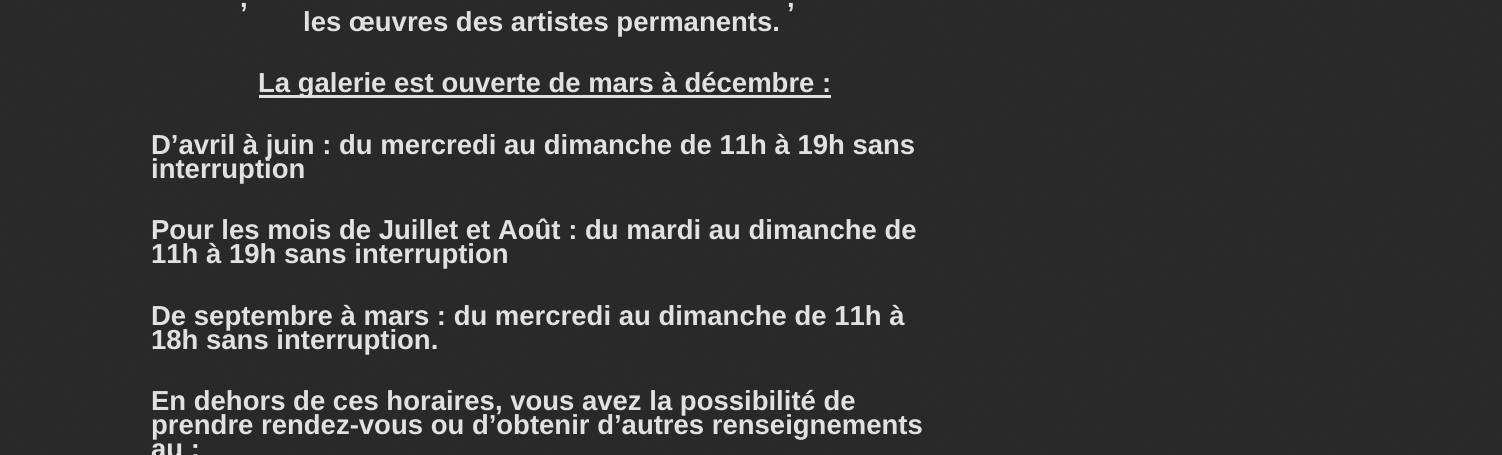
#include <cairo.h>
#include <math.h>
#include <stddef.h>

typedef struct { double x, y; const char *s; } line_t;

static void ink(cairo_t *ctx, unsigned color) {
    cairo_set_source_rgb(ctx, (color >> 16) / 255.0, (color >> 8 & 255) / 255.0, (color & 255) / 255.0);
}

static void paste(cairo_t *ctx, const char *path, double x, double y, double w, double h) {
    cairo_surface_t *image = cairo_image_surface_create_from_png(path);
    cairo_save(ctx);
    cairo_set_source_surface(ctx, image, x, y);
    cairo_rectangle(ctx, x, y, w, h);
    cairo_fill(ctx);
    cairo_restore(ctx);
    cairo_surface_destroy(image);
}

int main(void) {
    cairo_surface_t *surface = cairo_image_surface_create(CAIRO_FORMAT_RGB24, 1502, 455);
    cairo_t *ctx = cairo_create(surface);
    cairo_font_options_t *options = cairo_font_options_create();
    cairo_font_options_set_hint_metrics(options, CAIRO_HINT_METRICS_OFF);
    cairo_font_options_set_hint_style(options, CAIRO_HINT_STYLE_NONE);
    cairo_set_font_options(ctx, options);
    cairo_set_miter_limit(ctx, 4);
    ink(ctx, 0xFFFFFF);
    cairo_paint(ctx);
    paste(ctx, "media/1.png", 0, 0, 1502, 455);
    cairo_select_font_face(ctx, "Liberation Sans", CAIRO_FONT_SLANT_NORMAL, CAIRO_FONT_WEIGHT_BOLD);
    cairo_set_font_size(ctx, 27.5);
    ink(ctx, 0xE1E1E1);
    {
        static const line_t items[] = {
            {240, 7, ","},
            {787, 7, ","},
            {303, 31, "les œuvres des artistes permanents."},
        };
        for (size_t i = 0; i < sizeof items / sizeof *items; i++) {
            cairo_move_to(ctx, items[i].x, items[i].y);
            cairo_show_text(ctx, items[i].s);
        }
    }
    cairo_rectangle(ctx, 259, 95, 572, 3);
    cairo_fill(ctx);
    {
        static const line_t items[] = {
            {258, 92, "La galerie est ouverte de mars à décembre :"},
            {151, 154, "D’avril à juin : du mercredi au dimanche de 11h à 19h sans"},
            {151, 178, "interruption"},
            {151, 239, "Pour les mois de Juillet et Août : du mardi au dimanche de"},
            {151, 263, "11h à 19h sans interruption"},
            {151, 325, "De septembre à mars : du mercredi au dimanche de 11h à"},
            {151, 349, "18h sans interruption."},
            {151, 410, "En dehors de ces horaires, vous avez la possibilité de"},
            {151, 434, "prendre rendez-vous ou d’obtenir d’autres renseignements"},
            {151, 458, "au :"},
        };
        for (size_t i = 0; i < sizeof items / sizeof *items; i++) {
            cairo_move_to(ctx, items[i].x, items[i].y);
            cairo_show_text(ctx, items[i].s);
        }
    }
    cairo_surface_write_to_png(surface, "image.png");
    cairo_font_options_destroy(options);
    cairo_destroy(ctx);
    cairo_surface_destroy(surface);
    return 0;
}
